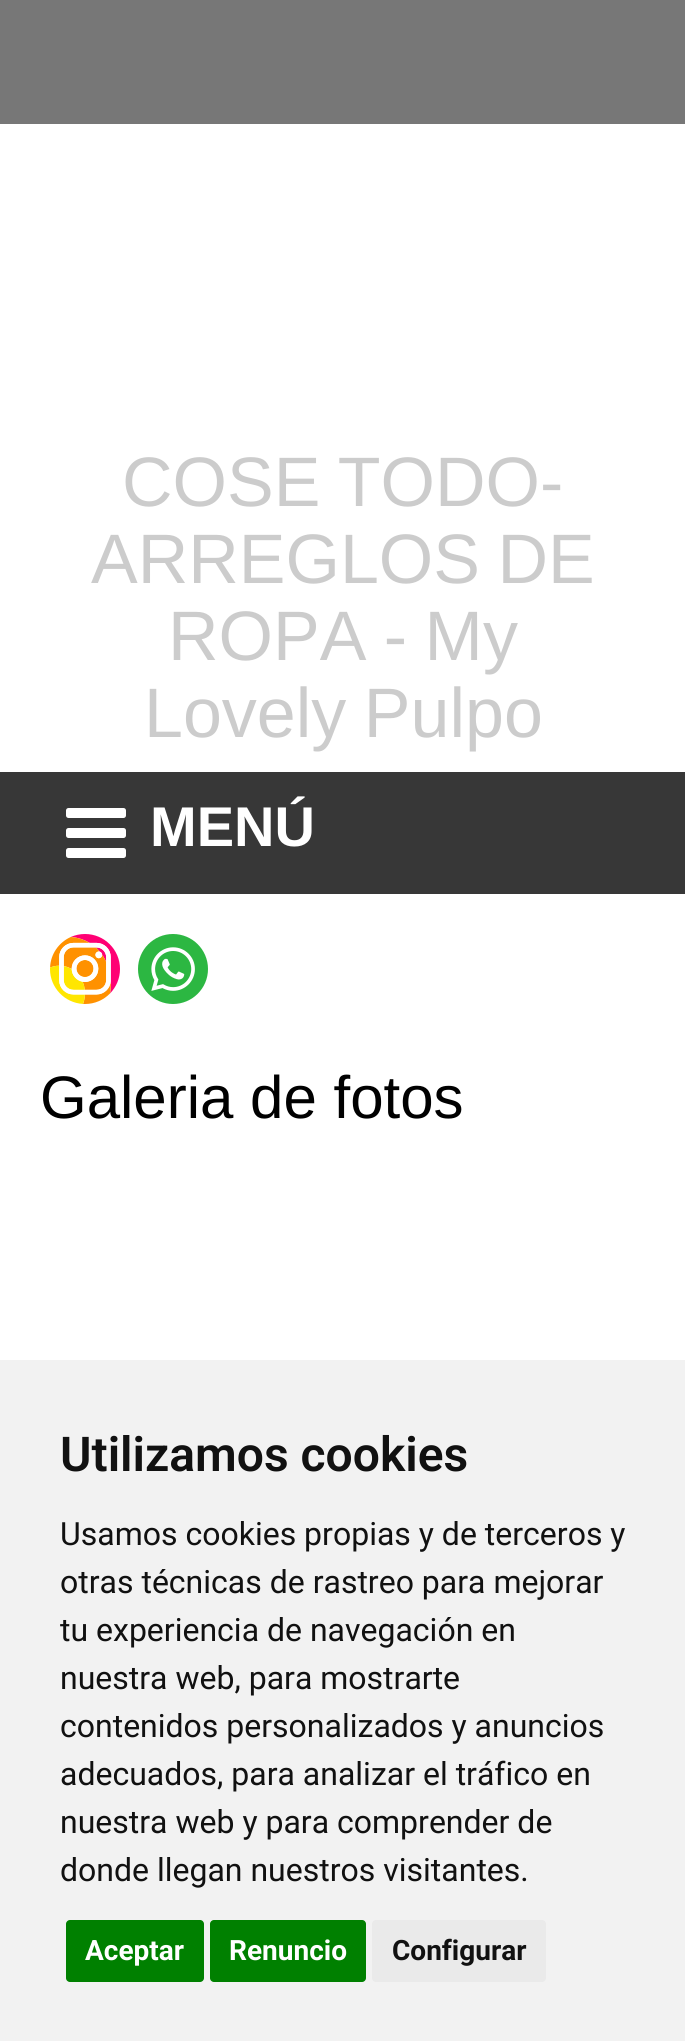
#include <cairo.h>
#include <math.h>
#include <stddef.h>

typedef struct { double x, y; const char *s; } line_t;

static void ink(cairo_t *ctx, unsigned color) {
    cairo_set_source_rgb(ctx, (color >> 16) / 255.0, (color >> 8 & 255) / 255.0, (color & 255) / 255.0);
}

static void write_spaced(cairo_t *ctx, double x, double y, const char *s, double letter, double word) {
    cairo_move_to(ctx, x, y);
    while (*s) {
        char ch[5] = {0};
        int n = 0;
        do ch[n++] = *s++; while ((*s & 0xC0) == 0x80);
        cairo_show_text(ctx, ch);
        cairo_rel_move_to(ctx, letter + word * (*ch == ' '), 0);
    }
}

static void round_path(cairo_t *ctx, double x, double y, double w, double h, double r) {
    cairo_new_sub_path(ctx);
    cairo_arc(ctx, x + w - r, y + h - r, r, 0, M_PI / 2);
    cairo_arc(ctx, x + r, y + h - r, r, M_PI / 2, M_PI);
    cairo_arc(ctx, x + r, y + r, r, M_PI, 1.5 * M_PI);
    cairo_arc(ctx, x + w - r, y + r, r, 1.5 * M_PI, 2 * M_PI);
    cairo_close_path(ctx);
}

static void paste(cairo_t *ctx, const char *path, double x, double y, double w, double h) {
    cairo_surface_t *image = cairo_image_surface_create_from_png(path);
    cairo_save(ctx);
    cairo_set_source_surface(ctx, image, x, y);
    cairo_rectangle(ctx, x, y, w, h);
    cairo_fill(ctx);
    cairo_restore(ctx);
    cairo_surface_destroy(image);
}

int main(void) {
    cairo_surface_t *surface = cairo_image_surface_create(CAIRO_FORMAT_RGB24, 685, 2041);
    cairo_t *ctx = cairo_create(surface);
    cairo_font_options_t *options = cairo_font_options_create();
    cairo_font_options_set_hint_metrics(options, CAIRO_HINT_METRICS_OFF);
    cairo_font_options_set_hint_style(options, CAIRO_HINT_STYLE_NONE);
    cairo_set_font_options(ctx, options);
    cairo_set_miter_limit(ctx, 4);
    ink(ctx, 0xFFFFFF);
    cairo_paint(ctx);
    ink(ctx, 0x777777);
    cairo_rectangle(ctx, 0, 0, 685, 124);
    cairo_fill(ctx);
    cairo_select_font_face(ctx, "Liberation Sans", CAIRO_FONT_SLANT_NORMAL, CAIRO_FONT_WEIGHT_NORMAL);
    cairo_set_font_size(ctx, 70);
    ink(ctx, 0xCCCCCC);
    {
        static const line_t items[] = {
            {122, 506, "COSE TODO-"},
            {91, 583, "ARREGLOS DE"},
            {168, 660, "ROPA - My"},
            {144, 737, "Lovely Pulpo"},
        };
        for (size_t i = 0; i < sizeof items / sizeof *items; i++) {
            write_spaced(ctx, items[i].x, items[i].y, items[i].s, 0, -2);
        }
    }
    ink(ctx, 0x373737);
    cairo_rectangle(ctx, 0, 772, 685, 122);
    cairo_fill(ctx);
    paste(ctx, "media/1.png", 66, 808, 60, 50);
    cairo_select_font_face(ctx, "Liberation Sans", CAIRO_FONT_SLANT_NORMAL, CAIRO_FONT_WEIGHT_BOLD);
    cairo_set_font_size(ctx, 56);
    ink(ctx, 0xFFFFFF);
    cairo_move_to(ctx, 150, 846);
    cairo_show_text(ctx, "MENÚ");
    paste(ctx, "media/2.png", 50, 934, 70, 70);
    paste(ctx, "media/3.png", 138, 934, 70, 70);
    cairo_select_font_face(ctx, "Liberation Sans", CAIRO_FONT_SLANT_NORMAL, CAIRO_FONT_WEIGHT_NORMAL);
    cairo_set_font_size(ctx, 60);
    ink(ctx, 0x000000);
    cairo_move_to(ctx, 40, 1118);
    cairo_show_text(ctx, "Galeria de fotos");
    ink(ctx, 0xF2F2F2);
    cairo_rectangle(ctx, 0, 1360, 685, 681);
    cairo_fill(ctx);
    cairo_select_font_face(ctx, "Roboto SemiBold", CAIRO_FONT_SLANT_NORMAL, CAIRO_FONT_WEIGHT_NORMAL);
    cairo_set_font_size(ctx, 48);
    ink(ctx, 0x111111);
    cairo_move_to(ctx, 60, 1471);
    cairo_show_text(ctx, "Utilizamos cookies");
    cairo_select_font_face(ctx, "Roboto", CAIRO_FONT_SLANT_NORMAL, CAIRO_FONT_WEIGHT_NORMAL);
    cairo_set_font_size(ctx, 32);
    {
        static const line_t items[] = {
            {60, 1545, "Usamos cookies propias y de terceros y"},
            {60, 1593, "otras técnicas de rastreo para mejorar"},
            {60, 1641, "tu experiencia de navegación en"},
            {60, 1689, "nuestra web, para mostrarte"},
            {60, 1737, "contenidos personalizados y anuncios"},
            {60, 1785, "adecuados, para analizar el tráfico en"},
            {60, 1833, "nuestra web y para comprender de"},
            {60, 1881, "donde llegan nuestros visitantes."},
        };
        for (size_t i = 0; i < sizeof items / sizeof *items; i++) {
            cairo_move_to(ctx, items[i].x, items[i].y);
            cairo_show_text(ctx, items[i].s);
        }
    }
    ink(ctx, 0x008000);
    round_path(ctx, 66, 1920, 138, 62, 4);
    cairo_fill(ctx);
    cairo_select_font_face(ctx, "Roboto", CAIRO_FONT_SLANT_NORMAL, CAIRO_FONT_WEIGHT_BOLD);
    cairo_set_font_size(ctx, 28);
    ink(ctx, 0xFFFFFF);
    cairo_move_to(ctx, 85, 1960);
    cairo_show_text(ctx, "Aceptar");
    ink(ctx, 0x008000);
    round_path(ctx, 210, 1920, 156, 62, 4);
    cairo_fill(ctx);
    ink(ctx, 0xFFFFFF);
    cairo_move_to(ctx, 229, 1960);
    cairo_show_text(ctx, "Renuncio");
    ink(ctx, 0xEAEAEA);
    round_path(ctx, 372, 1920, 174, 62, 4);
    cairo_fill(ctx);
    ink(ctx, 0x111111);
    cairo_move_to(ctx, 392, 1960);
    cairo_show_text(ctx, "Configurar");
    cairo_surface_write_to_png(surface, "image.png");
    cairo_font_options_destroy(options);
    cairo_destroy(ctx);
    cairo_surface_destroy(surface);
    return 0;
}
